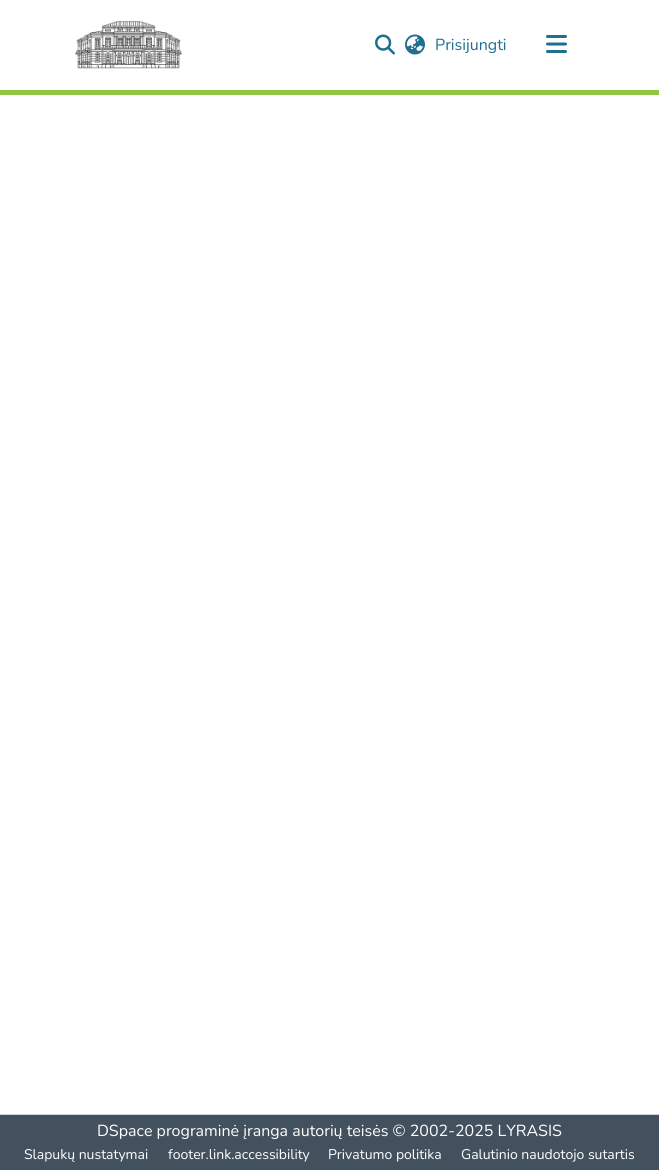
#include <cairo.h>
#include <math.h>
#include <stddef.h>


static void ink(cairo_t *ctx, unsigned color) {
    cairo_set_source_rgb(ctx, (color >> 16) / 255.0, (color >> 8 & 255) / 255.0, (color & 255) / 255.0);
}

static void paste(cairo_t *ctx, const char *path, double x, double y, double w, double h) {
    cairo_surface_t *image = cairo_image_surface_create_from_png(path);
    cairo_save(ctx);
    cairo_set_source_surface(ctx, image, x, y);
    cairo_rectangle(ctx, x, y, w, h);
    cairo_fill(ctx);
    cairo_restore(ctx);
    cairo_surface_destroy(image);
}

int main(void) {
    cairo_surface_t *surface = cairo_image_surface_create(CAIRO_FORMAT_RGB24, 659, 1170);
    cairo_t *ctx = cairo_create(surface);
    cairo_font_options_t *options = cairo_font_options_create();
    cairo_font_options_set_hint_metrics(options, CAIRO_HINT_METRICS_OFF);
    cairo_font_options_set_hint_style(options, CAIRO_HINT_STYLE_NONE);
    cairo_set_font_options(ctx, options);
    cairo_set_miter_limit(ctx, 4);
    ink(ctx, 0xFFFFFF);
    cairo_paint(ctx);
    ink(ctx, 0x92C642);
    cairo_rectangle(ctx, 0, 90, 659, 5);
    cairo_fill(ctx);
    paste(ctx, "media/1.png", 75, 20, 107, 49);
    paste(ctx, "media/2.png", 375, 34, 20, 21);
    paste(ctx, "media/3.png", 405, 34, 20, 21);
    cairo_select_font_face(ctx, "Nunito", CAIRO_FONT_SLANT_NORMAL, CAIRO_FONT_WEIGHT_NORMAL);
    cairo_set_font_size(ctx, 16);
    ink(ctx, 0x1E6F90);
    cairo_move_to(ctx, 435, 50);
    cairo_show_text(ctx, "Prisijungti");
    paste(ctx, "media/4.png", 546, 35, 21, 18);
    ink(ctx, 0x43515F);
    cairo_rectangle(ctx, 0, 1115, 659, 55);
    cairo_fill(ctx);
    ink(ctx, 0xCED4DA);
    cairo_rectangle(ctx, 0, 1114, 659, 1);
    cairo_fill(ctx);
    ink(ctx, 0xFFFFFF);
    cairo_move_to(ctx, 97, 1136);
    cairo_show_text(ctx, "DSpace programinė įranga autorių teisės © 2002-2025 LYRASIS");
    cairo_set_font_size(ctx, 14);
    cairo_move_to(ctx, 24, 1159);
    cairo_show_text(ctx, "Slapukų nustatymai");
    ink(ctx, 0x495057);
    cairo_rectangle(ctx, 158, 1143, 1, 23);
    cairo_fill(ctx);
    ink(ctx, 0xFFFFFF);
    cairo_move_to(ctx, 168, 1159);
    cairo_show_text(ctx, "footer.link.accessibility");
    ink(ctx, 0x495057);
    cairo_rectangle(ctx, 318, 1143, 1, 23);
    cairo_fill(ctx);
    ink(ctx, 0xFFFFFF);
    cairo_move_to(ctx, 328, 1159);
    cairo_show_text(ctx, "Privatumo politika");
    ink(ctx, 0x495057);
    cairo_rectangle(ctx, 451, 1143, 1, 23);
    cairo_fill(ctx);
    ink(ctx, 0xFFFFFF);
    cairo_move_to(ctx, 461, 1159);
    cairo_show_text(ctx, "Galutinio naudotojo sutartis");
    cairo_surface_write_to_png(surface, "image.png");
    cairo_font_options_destroy(options);
    cairo_destroy(ctx);
    cairo_surface_destroy(surface);
    return 0;
}
